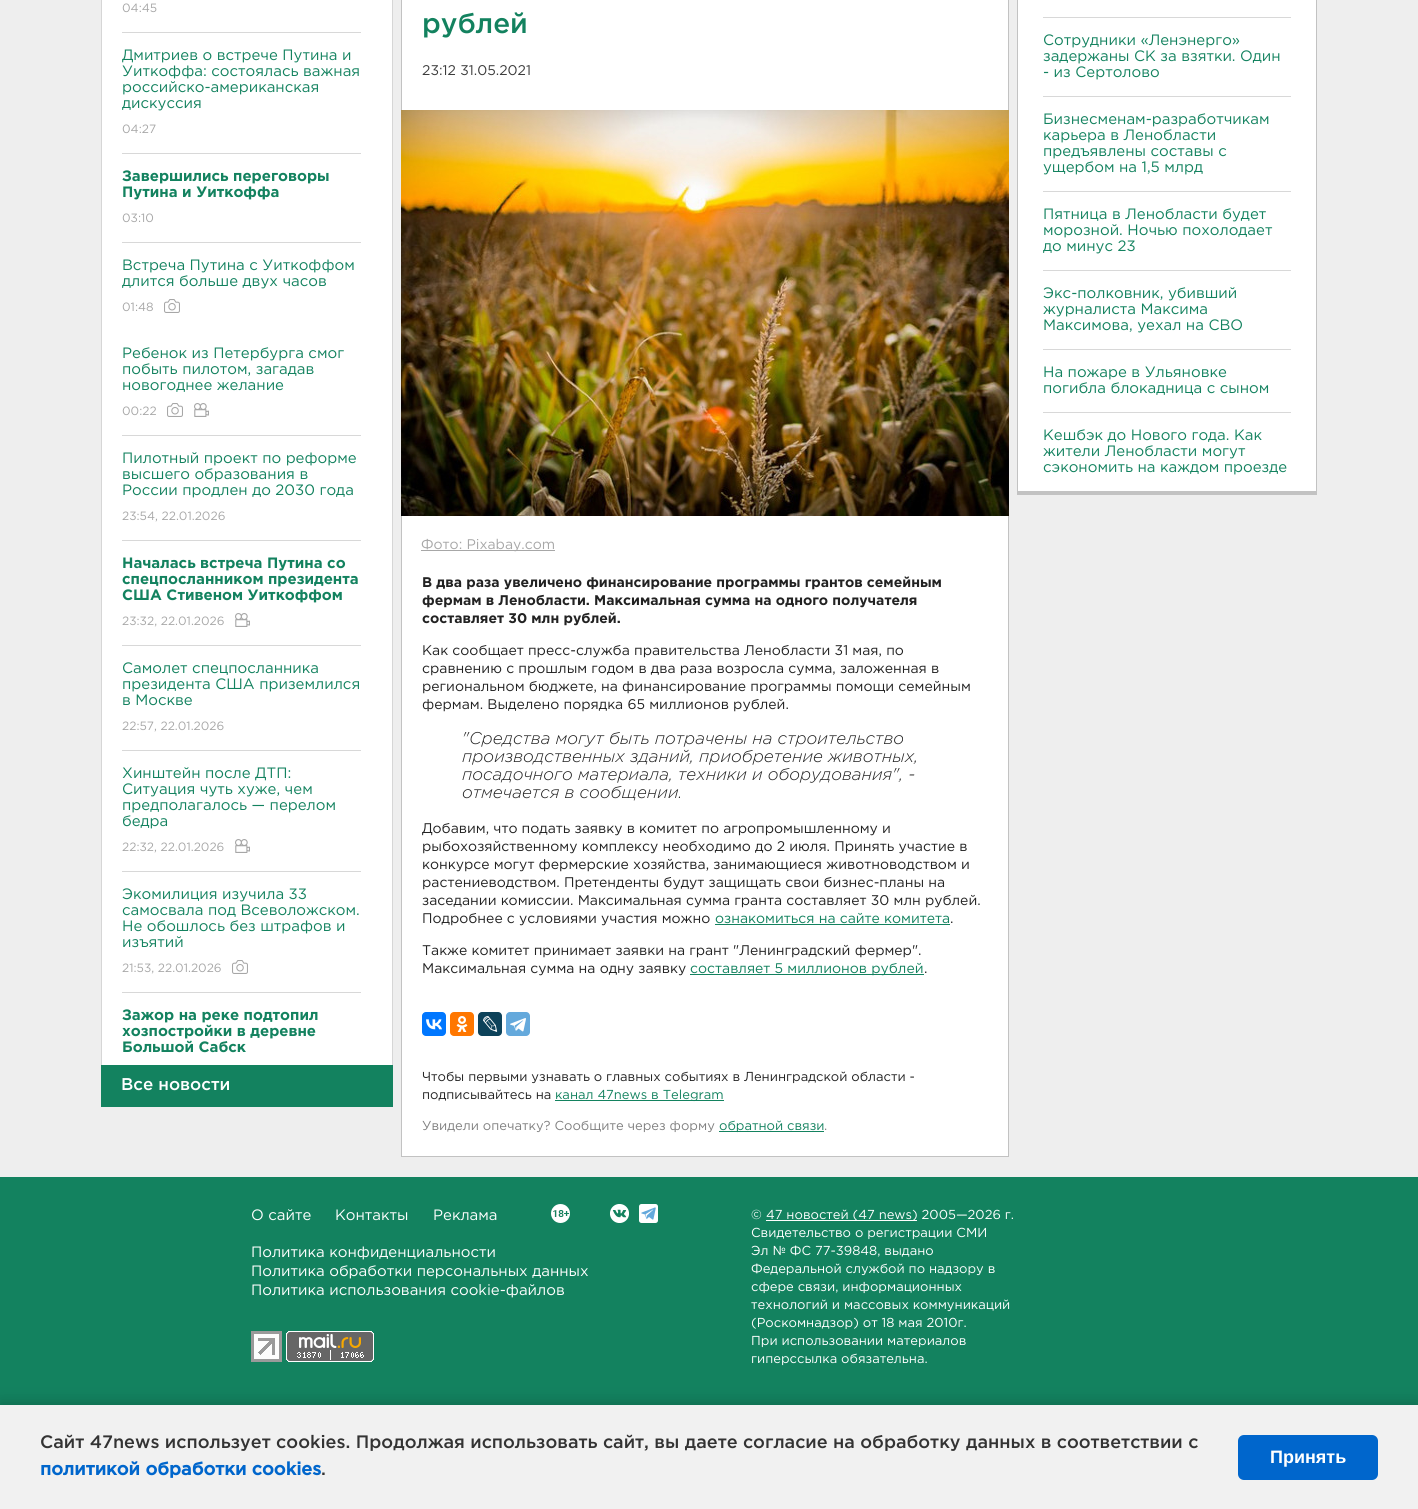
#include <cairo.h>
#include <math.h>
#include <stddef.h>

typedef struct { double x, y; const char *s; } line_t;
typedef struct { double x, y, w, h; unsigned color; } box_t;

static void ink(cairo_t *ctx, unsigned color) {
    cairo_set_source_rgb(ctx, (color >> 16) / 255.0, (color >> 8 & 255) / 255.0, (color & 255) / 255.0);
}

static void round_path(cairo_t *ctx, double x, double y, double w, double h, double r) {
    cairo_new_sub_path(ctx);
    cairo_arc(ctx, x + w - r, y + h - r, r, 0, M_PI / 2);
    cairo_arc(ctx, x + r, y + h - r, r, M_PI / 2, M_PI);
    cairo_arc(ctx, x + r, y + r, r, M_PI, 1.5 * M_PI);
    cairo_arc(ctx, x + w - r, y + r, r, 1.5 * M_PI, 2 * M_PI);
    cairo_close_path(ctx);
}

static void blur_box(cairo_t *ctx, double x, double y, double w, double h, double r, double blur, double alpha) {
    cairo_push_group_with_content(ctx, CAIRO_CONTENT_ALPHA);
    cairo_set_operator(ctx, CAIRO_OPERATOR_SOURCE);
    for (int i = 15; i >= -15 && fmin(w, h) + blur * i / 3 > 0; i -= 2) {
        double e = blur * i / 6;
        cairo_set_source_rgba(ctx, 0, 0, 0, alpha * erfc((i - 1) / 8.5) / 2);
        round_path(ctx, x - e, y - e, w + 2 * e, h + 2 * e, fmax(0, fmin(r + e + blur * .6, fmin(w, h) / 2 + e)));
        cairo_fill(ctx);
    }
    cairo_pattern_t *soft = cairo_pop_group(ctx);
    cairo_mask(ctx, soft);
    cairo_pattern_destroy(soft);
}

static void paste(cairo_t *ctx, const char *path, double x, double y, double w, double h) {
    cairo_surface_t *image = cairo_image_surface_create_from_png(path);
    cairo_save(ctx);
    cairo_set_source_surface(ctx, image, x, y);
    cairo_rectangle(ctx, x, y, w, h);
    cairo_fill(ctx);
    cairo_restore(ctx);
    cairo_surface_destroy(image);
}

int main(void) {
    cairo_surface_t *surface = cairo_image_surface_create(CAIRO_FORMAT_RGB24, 1418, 1509);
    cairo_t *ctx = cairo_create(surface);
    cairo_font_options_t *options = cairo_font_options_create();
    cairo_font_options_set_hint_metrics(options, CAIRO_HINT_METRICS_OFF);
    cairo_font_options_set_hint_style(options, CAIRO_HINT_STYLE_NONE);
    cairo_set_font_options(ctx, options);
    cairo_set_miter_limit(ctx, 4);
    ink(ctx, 0xEEEEEE);
    cairo_paint(ctx);
    {
        static const box_t items[] = {
            {102, 0, 290, 1065, 0xFFFFFF},
            {392, 0, 1, 1065, 0xD6D6D6},
            {101, 0, 1, 1065, 0xD6D6D6},
            {122, 32, 239, 1, 0xD8D8D8},
        };
        for (size_t i = 0; i < sizeof items / sizeof *items; i++) {
            ink(ctx, items[i].color);
            cairo_rectangle(ctx, items[i].x, items[i].y, items[i].w, items[i].h);
            cairo_fill(ctx);
        }
    }
    cairo_select_font_face(ctx, "Gotham", CAIRO_FONT_SLANT_NORMAL, CAIRO_FONT_WEIGHT_NORMAL);
    cairo_set_font_size(ctx, 12);
    ink(ctx, 0xA7A7A7);
    cairo_move_to(ctx, 122, 12);
    cairo_show_text(ctx, "04:45");
    ink(ctx, 0xD8D8D8);
    cairo_rectangle(ctx, 122, 153, 239, 1);
    cairo_fill(ctx);
    cairo_set_font_size(ctx, 15);
    ink(ctx, 0x13825F);
    {
        static const line_t items[] = {
            {122, 60, "Дмитриев о встрече Путина и"},
            {122, 76, "Уиткоффа: состоялась важная"},
            {122, 92, "российско-американская"},
            {122, 108, "дискуссия"},
        };
        for (size_t i = 0; i < sizeof items / sizeof *items; i++) {
            cairo_move_to(ctx, items[i].x, items[i].y);
            cairo_show_text(ctx, items[i].s);
        }
    }
    cairo_set_font_size(ctx, 12);
    ink(ctx, 0xA7A7A7);
    cairo_move_to(ctx, 122, 133);
    cairo_show_text(ctx, "04:27");
    ink(ctx, 0xD8D8D8);
    cairo_rectangle(ctx, 122, 242, 239, 1);
    cairo_fill(ctx);
    cairo_select_font_face(ctx, "Gotham", CAIRO_FONT_SLANT_NORMAL, CAIRO_FONT_WEIGHT_BOLD);
    cairo_set_font_size(ctx, 15);
    ink(ctx, 0x13825F);
    cairo_move_to(ctx, 122, 181);
    cairo_show_text(ctx, "Завершились переговоры");
    cairo_move_to(ctx, 122, 197);
    cairo_show_text(ctx, "Путина и Уиткоффа");
    cairo_select_font_face(ctx, "Gotham", CAIRO_FONT_SLANT_NORMAL, CAIRO_FONT_WEIGHT_NORMAL);
    cairo_set_font_size(ctx, 12);
    ink(ctx, 0xA7A7A7);
    cairo_move_to(ctx, 122, 222);
    cairo_show_text(ctx, "03:10");
    cairo_set_font_size(ctx, 15);
    ink(ctx, 0x13825F);
    cairo_move_to(ctx, 122, 270);
    cairo_show_text(ctx, "Встреча Путина с Уиткоффом");
    cairo_move_to(ctx, 122, 286);
    cairo_show_text(ctx, "длится больше двух часов");
    cairo_set_font_size(ctx, 12);
    ink(ctx, 0xA7A7A7);
    cairo_move_to(ctx, 122, 311);
    cairo_show_text(ctx, "01:48");
    paste(ctx, "media/1.png", 164, 299, 16, 14);
    ink(ctx, 0xD8D8D8);
    cairo_rectangle(ctx, 122, 435, 239, 1);
    cairo_fill(ctx);
    cairo_set_font_size(ctx, 15);
    ink(ctx, 0x13825F);
    {
        static const line_t items[] = {
            {122, 358, "Ребенок из Петербурга смог"},
            {122, 374, "побыть пилотом, загадав"},
            {122, 390, "новогоднее желание"},
        };
        for (size_t i = 0; i < sizeof items / sizeof *items; i++) {
            cairo_move_to(ctx, items[i].x, items[i].y);
            cairo_show_text(ctx, items[i].s);
        }
    }
    cairo_set_font_size(ctx, 12);
    ink(ctx, 0xA7A7A7);
    cairo_move_to(ctx, 122, 415);
    cairo_show_text(ctx, "00:22");
    paste(ctx, "media/1.png", 167, 403, 16, 14);
    paste(ctx, "media/2.png", 194, 403, 15, 14);
    ink(ctx, 0xD8D8D8);
    cairo_rectangle(ctx, 122, 540, 239, 1);
    cairo_fill(ctx);
    cairo_set_font_size(ctx, 15);
    ink(ctx, 0x13825F);
    {
        static const line_t items[] = {
            {122, 463, "Пилотный проект по реформе"},
            {122, 479, "высшего образования в"},
            {122, 495, "России продлен до 2030 года"},
        };
        for (size_t i = 0; i < sizeof items / sizeof *items; i++) {
            cairo_move_to(ctx, items[i].x, items[i].y);
            cairo_show_text(ctx, items[i].s);
        }
    }
    cairo_set_font_size(ctx, 12);
    ink(ctx, 0xA7A7A7);
    cairo_move_to(ctx, 122, 520);
    cairo_show_text(ctx, "23:54, 22.01.2026");
    ink(ctx, 0xD8D8D8);
    cairo_rectangle(ctx, 122, 645, 239, 1);
    cairo_fill(ctx);
    cairo_select_font_face(ctx, "Gotham", CAIRO_FONT_SLANT_NORMAL, CAIRO_FONT_WEIGHT_BOLD);
    cairo_set_font_size(ctx, 15);
    ink(ctx, 0x13825F);
    {
        static const line_t items[] = {
            {122, 568, "Началась встреча Путина со"},
            {122, 584, "спецпосланником президента"},
            {122, 600, "США Стивеном Уиткоффом"},
        };
        for (size_t i = 0; i < sizeof items / sizeof *items; i++) {
            cairo_move_to(ctx, items[i].x, items[i].y);
            cairo_show_text(ctx, items[i].s);
        }
    }
    cairo_select_font_face(ctx, "Gotham", CAIRO_FONT_SLANT_NORMAL, CAIRO_FONT_WEIGHT_NORMAL);
    cairo_set_font_size(ctx, 12);
    ink(ctx, 0xA7A7A7);
    cairo_move_to(ctx, 122, 625);
    cairo_show_text(ctx, "23:32, 22.01.2026");
    paste(ctx, "media/2.png", 235, 613, 15, 14);
    ink(ctx, 0xD8D8D8);
    cairo_rectangle(ctx, 122, 750, 239, 1);
    cairo_fill(ctx);
    cairo_set_font_size(ctx, 15);
    ink(ctx, 0x13825F);
    {
        static const line_t items[] = {
            {122, 673, "Самолет спецпосланника"},
            {122, 689, "президента США приземлился"},
            {122, 705, "в Москве"},
        };
        for (size_t i = 0; i < sizeof items / sizeof *items; i++) {
            cairo_move_to(ctx, items[i].x, items[i].y);
            cairo_show_text(ctx, items[i].s);
        }
    }
    cairo_set_font_size(ctx, 12);
    ink(ctx, 0xA7A7A7);
    cairo_move_to(ctx, 122, 730);
    cairo_show_text(ctx, "22:57, 22.01.2026");
    ink(ctx, 0xD8D8D8);
    cairo_rectangle(ctx, 122, 871, 239, 1);
    cairo_fill(ctx);
    cairo_set_font_size(ctx, 15);
    ink(ctx, 0x13825F);
    {
        static const line_t items[] = {
            {122, 778, "Хинштейн после ДТП:"},
            {122, 794, "Ситуация чуть хуже, чем"},
            {122, 810, "предполагалось — перелом"},
            {122, 826, "бедра"},
        };
        for (size_t i = 0; i < sizeof items / sizeof *items; i++) {
            cairo_move_to(ctx, items[i].x, items[i].y);
            cairo_show_text(ctx, items[i].s);
        }
    }
    cairo_set_font_size(ctx, 12);
    ink(ctx, 0xA7A7A7);
    cairo_move_to(ctx, 122, 851);
    cairo_show_text(ctx, "22:32, 22.01.2026");
    paste(ctx, "media/2.png", 235, 839, 15, 14);
    ink(ctx, 0xD8D8D8);
    cairo_rectangle(ctx, 122, 992, 239, 1);
    cairo_fill(ctx);
    cairo_set_font_size(ctx, 15);
    ink(ctx, 0x13825F);
    {
        static const line_t items[] = {
            {122, 899, "Экомилиция изучила 33"},
            {122, 915, "самосвала под Всеволожском."},
            {122, 931, "Не обошлось без штрафов и"},
            {122, 947, "изъятий"},
        };
        for (size_t i = 0; i < sizeof items / sizeof *items; i++) {
            cairo_move_to(ctx, items[i].x, items[i].y);
            cairo_show_text(ctx, items[i].s);
        }
    }
    cairo_set_font_size(ctx, 12);
    ink(ctx, 0xA7A7A7);
    cairo_move_to(ctx, 122, 972);
    cairo_show_text(ctx, "21:53, 22.01.2026");
    paste(ctx, "media/1.png", 232, 960, 16, 14);
    cairo_select_font_face(ctx, "Gotham", CAIRO_FONT_SLANT_NORMAL, CAIRO_FONT_WEIGHT_BOLD);
    cairo_set_font_size(ctx, 15);
    ink(ctx, 0x13825F);
    {
        static const line_t items[] = {
            {122, 1020, "Зажор на реке подтопил"},
            {122, 1036, "хозпостройки в деревне"},
            {122, 1052, "Большой Сабск"},
        };
        for (size_t i = 0; i < sizeof items / sizeof *items; i++) {
            cairo_move_to(ctx, items[i].x, items[i].y);
            cairo_show_text(ctx, items[i].s);
        }
    }
    cairo_rectangle(ctx, 101, 1065, 292, 42);
    cairo_fill(ctx);
    cairo_select_font_face(ctx, "Gotham Medium", CAIRO_FONT_SLANT_NORMAL, CAIRO_FONT_WEIGHT_NORMAL);
    cairo_set_font_size(ctx, 17);
    ink(ctx, 0xFFFFFF);
    cairo_move_to(ctx, 121, 1090);
    cairo_show_text(ctx, "Все новости");
    cairo_rectangle(ctx, 401.5, -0.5, 607, 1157);
    cairo_fill_preserve(ctx);
    ink(ctx, 0xC2C2C2);
    cairo_set_line_width(ctx, 1);
    cairo_stroke(ctx);
    cairo_set_font_size(ctx, 28);
    ink(ctx, 0x13825F);
    cairo_move_to(ctx, 422, 33);
    cairo_show_text(ctx, "рублей");
    cairo_select_font_face(ctx, "Gotham", CAIRO_FONT_SLANT_NORMAL, CAIRO_FONT_WEIGHT_NORMAL);
    cairo_set_font_size(ctx, 14);
    ink(ctx, 0x3C3C3C);
    cairo_move_to(ctx, 422, 75);
    cairo_show_text(ctx, "23:12 31.05.2021");
    paste(ctx, "media/3.png", 401, 110, 608, 406);
    ink(ctx, 0xA7A7A7);
    cairo_rectangle(ctx, 421, 550, 134, 1);
    cairo_fill(ctx);
    cairo_move_to(ctx, 421, 549);
    cairo_show_text(ctx, "Фото: Pixabay.com");
    cairo_select_font_face(ctx, "Gotham", CAIRO_FONT_SLANT_NORMAL, CAIRO_FONT_WEIGHT_BOLD);
    ink(ctx, 0x222222);
    {
        static const line_t items[] = {
            {422, 587, "В два раза увеличено финансирование программы грантов семейным"},
            {422, 605, "фермам в Ленобласти. Максимальная сумма на одного получателя"},
            {422, 623, "составляет 30 млн рублей."},
        };
        for (size_t i = 0; i < sizeof items / sizeof *items; i++) {
            cairo_move_to(ctx, items[i].x, items[i].y);
            cairo_show_text(ctx, items[i].s);
        }
    }
    cairo_select_font_face(ctx, "Gotham", CAIRO_FONT_SLANT_NORMAL, CAIRO_FONT_WEIGHT_NORMAL);
    {
        static const line_t items[] = {
            {422, 655, "Как сообщает пресс-служба правительства Ленобласти 31 мая, по"},
            {422, 673, "сравнению с прошлым годом в два раза возросла сумма, заложенная в"},
            {422, 691, "региональном бюджете, на финансирование программы помощи семейным"},
            {422, 709, "фермам. Выделено порядка 65 миллионов рублей."},
        };
        for (size_t i = 0; i < sizeof items / sizeof *items; i++) {
            cairo_move_to(ctx, items[i].x, items[i].y);
            cairo_show_text(ctx, items[i].s);
        }
    }
    cairo_select_font_face(ctx, "Gotham Light", CAIRO_FONT_SLANT_ITALIC, CAIRO_FONT_WEIGHT_NORMAL);
    cairo_set_font_size(ctx, 17);
    {
        static const line_t items[] = {
            {462, 744, "\"Средства могут быть потрачены на строительство"},
            {462, 762, "производственных зданий, приобретение животных,"},
            {462, 780, "посадочного материала, техники и оборудования\", -"},
            {462, 798, "отмечается в сообщении."},
        };
        for (size_t i = 0; i < sizeof items / sizeof *items; i++) {
            cairo_move_to(ctx, items[i].x, items[i].y);
            cairo_show_text(ctx, items[i].s);
        }
    }
    cairo_select_font_face(ctx, "Gotham", CAIRO_FONT_SLANT_NORMAL, CAIRO_FONT_WEIGHT_NORMAL);
    cairo_set_font_size(ctx, 14);
    {
        static const line_t items[] = {
            {422, 833, "Добавим, что подать заявку в комитет по агропромышленному и"},
            {422, 851, "рыбохозяйственному комплексу необходимо до 2 июля. Принять участие в"},
            {422, 869, "конкурсе могут фермерские хозяйства, занимающиеся животноводством и"},
            {422, 887, "растениеводством. Претенденты будут защищать свои бизнес-планы на"},
            {422, 905, "заседании комиссии. Максимальная сумма гранта составляет 30 млн рублей."},
            {422, 923, "Подробнее с условиями участия можно"},
        };
        for (size_t i = 0; i < sizeof items / sizeof *items; i++) {
            cairo_move_to(ctx, items[i].x, items[i].y);
            cairo_show_text(ctx, items[i].s);
        }
    }
    ink(ctx, 0x13825F);
    cairo_move_to(ctx, 715, 923);
    cairo_show_text(ctx, "ознакомиться на сайте комитета");
    cairo_rectangle(ctx, 715, 924, 235, 1);
    cairo_fill(ctx);
    ink(ctx, 0x222222);
    {
        static const line_t items[] = {
            {950, 923, "."},
            {422, 955, "Также комитет принимает заявки на грант \"Ленинградский фермер\"."},
            {422, 973, "Максимальная сумма на одну заявку"},
        };
        for (size_t i = 0; i < sizeof items / sizeof *items; i++) {
            cairo_move_to(ctx, items[i].x, items[i].y);
            cairo_show_text(ctx, items[i].s);
        }
    }
    ink(ctx, 0x13825F);
    cairo_rectangle(ctx, 690, 974, 234, 1);
    cairo_fill(ctx);
    cairo_move_to(ctx, 690, 973);
    cairo_show_text(ctx, "составляет 5 миллионов рублей");
    ink(ctx, 0x222222);
    cairo_move_to(ctx, 924, 973);
    cairo_show_text(ctx, ".");
    ink(ctx, 0x0077FF);
    round_path(ctx, 422, 1012, 24, 24, 4);
    cairo_fill(ctx);
    paste(ctx, "media/4.png", 426, 1019, 16, 11);
    ink(ctx, 0xFF7700);
    round_path(ctx, 450, 1012, 24, 24, 4);
    cairo_fill(ctx);
    paste(ctx, "media/5.png", 456, 1016, 12, 16);
    ink(ctx, 0x0D425A);
    round_path(ctx, 478, 1012, 24, 24, 4);
    cairo_fill(ctx);
    paste(ctx, "media/6.png", 483, 1016, 15, 16);
    ink(ctx, 0x64A9DC);
    round_path(ctx, 506, 1012, 24, 24, 4);
    cairo_fill(ctx);
    paste(ctx, "media/7.png", 510, 1018, 16, 14);
    cairo_set_font_size(ctx, 13);
    ink(ctx, 0x222222);
    cairo_move_to(ctx, 422, 1081);
    cairo_show_text(ctx, "Чтобы первыми узнавать о главных событиях в Ленинградской области -");
    cairo_move_to(ctx, 422, 1099);
    cairo_show_text(ctx, "подписывайтесь на");
    ink(ctx, 0x13825F);
    cairo_rectangle(ctx, 555, 1100, 169, 1);
    cairo_fill(ctx);
    cairo_move_to(ctx, 555, 1099);
    cairo_show_text(ctx, "канал 47news в Telegram");
    ink(ctx, 0x808080);
    cairo_move_to(ctx, 422, 1130);
    cairo_show_text(ctx, "Увидели опечатку? Сообщите через форму");
    ink(ctx, 0x13825F);
    cairo_rectangle(ctx, 719, 1131, 105, 1);
    cairo_fill(ctx);
    cairo_move_to(ctx, 719, 1130);
    cairo_show_text(ctx, "обратной связи");
    ink(ctx, 0x808080);
    cairo_move_to(ctx, 824, 1130);
    cairo_show_text(ctx, ".");
    {
        static const box_t items[] = {
            {1018, 0, 298, 491, 0xFFFFFF},
            {1316, 0, 1, 495, 0xC2C2C2},
            {1017, 491, 300, 4, 0xC2C2C2},
            {1017, 0, 1, 495, 0xC2C2C2},
            {1043, 17, 248, 1, 0xD8D8D8},
            {1043, 96, 248, 1, 0xD8D8D8},
        };
        for (size_t i = 0; i < sizeof items / sizeof *items; i++) {
            ink(ctx, items[i].color);
            cairo_rectangle(ctx, items[i].x, items[i].y, items[i].w, items[i].h);
            cairo_fill(ctx);
        }
    }
    cairo_set_font_size(ctx, 15);
    ink(ctx, 0x13825F);
    {
        static const line_t items[] = {
            {1043, 45, "Сотрудники «Ленэнерго»"},
            {1043, 61, "задержаны СК за взятки. Один"},
            {1043, 77, "- из Сертолово"},
        };
        for (size_t i = 0; i < sizeof items / sizeof *items; i++) {
            cairo_move_to(ctx, items[i].x, items[i].y);
            cairo_show_text(ctx, items[i].s);
        }
    }
    ink(ctx, 0xD8D8D8);
    cairo_rectangle(ctx, 1043, 191, 248, 1);
    cairo_fill(ctx);
    ink(ctx, 0x13825F);
    {
        static const line_t items[] = {
            {1043, 124, "Бизнесменам-разработчикам"},
            {1043, 140, "карьера в Ленобласти"},
            {1043, 156, "предъявлены составы с"},
            {1043, 172, "ущербом на 1,5 млрд"},
        };
        for (size_t i = 0; i < sizeof items / sizeof *items; i++) {
            cairo_move_to(ctx, items[i].x, items[i].y);
            cairo_show_text(ctx, items[i].s);
        }
    }
    ink(ctx, 0xD8D8D8);
    cairo_rectangle(ctx, 1043, 270, 248, 1);
    cairo_fill(ctx);
    ink(ctx, 0x13825F);
    {
        static const line_t items[] = {
            {1043, 219, "Пятница в Ленобласти будет"},
            {1043, 235, "морозной. Ночью похолодает"},
            {1043, 251, "до минус 23"},
        };
        for (size_t i = 0; i < sizeof items / sizeof *items; i++) {
            cairo_move_to(ctx, items[i].x, items[i].y);
            cairo_show_text(ctx, items[i].s);
        }
    }
    ink(ctx, 0xD8D8D8);
    cairo_rectangle(ctx, 1043, 349, 248, 1);
    cairo_fill(ctx);
    ink(ctx, 0x13825F);
    {
        static const line_t items[] = {
            {1043, 298, "Экс-полковник, убивший"},
            {1043, 314, "журналиста Максима"},
            {1043, 330, "Максимова, уехал на СВО"},
        };
        for (size_t i = 0; i < sizeof items / sizeof *items; i++) {
            cairo_move_to(ctx, items[i].x, items[i].y);
            cairo_show_text(ctx, items[i].s);
        }
    }
    ink(ctx, 0xD8D8D8);
    cairo_rectangle(ctx, 1043, 412, 248, 1);
    cairo_fill(ctx);
    ink(ctx, 0x13825F);
    {
        static const line_t items[] = {
            {1043, 377, "На пожаре в Ульяновке"},
            {1043, 393, "погибла блокадница с сыном"},
            {1043, 440, "Кешбэк до Нового года. Как"},
            {1043, 456, "жители Ленобласти могут"},
            {1043, 472, "сэкономить на каждом проезде"},
        };
        for (size_t i = 0; i < sizeof items / sizeof *items; i++) {
            cairo_move_to(ctx, items[i].x, items[i].y);
            cairo_show_text(ctx, items[i].s);
        }
    }
    cairo_rectangle(ctx, 0, 1177, 1418, 228);
    cairo_fill(ctx);
    ink(ctx, 0xFFFFFF);
    {
        static const line_t items[] = {
            {251, 1220, "О сайте"},
            {335, 1220, "Контакты"},
            {433, 1220, "Реклама"},
            {251, 1257, "Политика конфиденциальности"},
            {251, 1276, "Политика обработки персональных данных"},
            {251, 1295, "Политика использования cookie-файлов"},
        };
        for (size_t i = 0; i < sizeof items / sizeof *items; i++) {
            cairo_move_to(ctx, items[i].x, items[i].y);
            cairo_show_text(ctx, items[i].s);
        }
    }
    paste(ctx, "media/8.png", 551, 1204, 19, 19);
    paste(ctx, "media/9.png", 610, 1204, 19, 19);
    paste(ctx, "media/10.png", 639, 1204, 19, 19);
    paste(ctx, "media/11.png", 251, 1331, 31, 31);
    paste(ctx, "media/12.png", 286, 1331, 88, 31);
    cairo_set_font_size(ctx, 13);
    cairo_move_to(ctx, 751, 1219);
    cairo_show_text(ctx, "©");
    cairo_rectangle(ctx, 766, 1220, 151, 1);
    cairo_fill(ctx);
    {
        static const line_t items[] = {
            {766, 1219, "47 новостей (47 news) 2005—2026 г."},
            {751, 1237, "Свидетельство о регистрации СМИ"},
            {751, 1255, "Эл № ФС 77-39848, выдано"},
            {751, 1273, "Федеральной службой по надзору в"},
            {751, 1291, "сфере связи, информационных"},
            {751, 1309, "технологий и массовых коммуникаций"},
            {751, 1327, "(Роскомнадзор) от 18 мая 2010г."},
            {751, 1345, "При использовании материалов"},
            {751, 1363, "гиперссылка обязательна."},
        };
        for (size_t i = 0; i < sizeof items / sizeof *items; i++) {
            cairo_move_to(ctx, items[i].x, items[i].y);
            cairo_show_text(ctx, items[i].s);
        }
    }
    ink(ctx, 0x000000);
    blur_box(ctx, 0, 1403, 1418, 104, 0, 7.5, 0.2);
    ink(ctx, 0xF1F1F1);
    cairo_rectangle(ctx, 0, 1405, 1418, 104);
    cairo_fill(ctx);
    cairo_select_font_face(ctx, "Gotham Medium", CAIRO_FONT_SLANT_NORMAL, CAIRO_FONT_WEIGHT_NORMAL);
    cairo_set_font_size(ctx, 18);
    ink(ctx, 0x333333);
    cairo_move_to(ctx, 40, 1448);
    cairo_show_text(ctx, "Сайт 47news использует cookies. Продолжая использовать сайт, вы даете согласие на обработку данных в соответствии с");
    cairo_select_font_face(ctx, "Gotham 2", CAIRO_FONT_SLANT_NORMAL, CAIRO_FONT_WEIGHT_BOLD);
    ink(ctx, 0x0066CC);
    cairo_move_to(ctx, 40, 1475);
    cairo_show_text(ctx, "политикой обработки cookies");
    cairo_select_font_face(ctx, "Gotham Medium", CAIRO_FONT_SLANT_NORMAL, CAIRO_FONT_WEIGHT_NORMAL);
    ink(ctx, 0x333333);
    cairo_move_to(ctx, 321, 1475);
    cairo_show_text(ctx, ".");
    ink(ctx, 0x0066CC);
    round_path(ctx, 1238, 1435, 140, 45, 6);
    cairo_fill(ctx);
    cairo_select_font_face(ctx, "Liberation Sans", CAIRO_FONT_SLANT_NORMAL, CAIRO_FONT_WEIGHT_BOLD);
    ink(ctx, 0xFFFFFF);
    cairo_move_to(ctx, 1270, 1463);
    cairo_show_text(ctx, "Принять");
    cairo_surface_write_to_png(surface, "image.png");
    cairo_font_options_destroy(options);
    cairo_destroy(ctx);
    cairo_surface_destroy(surface);
    return 0;
}
